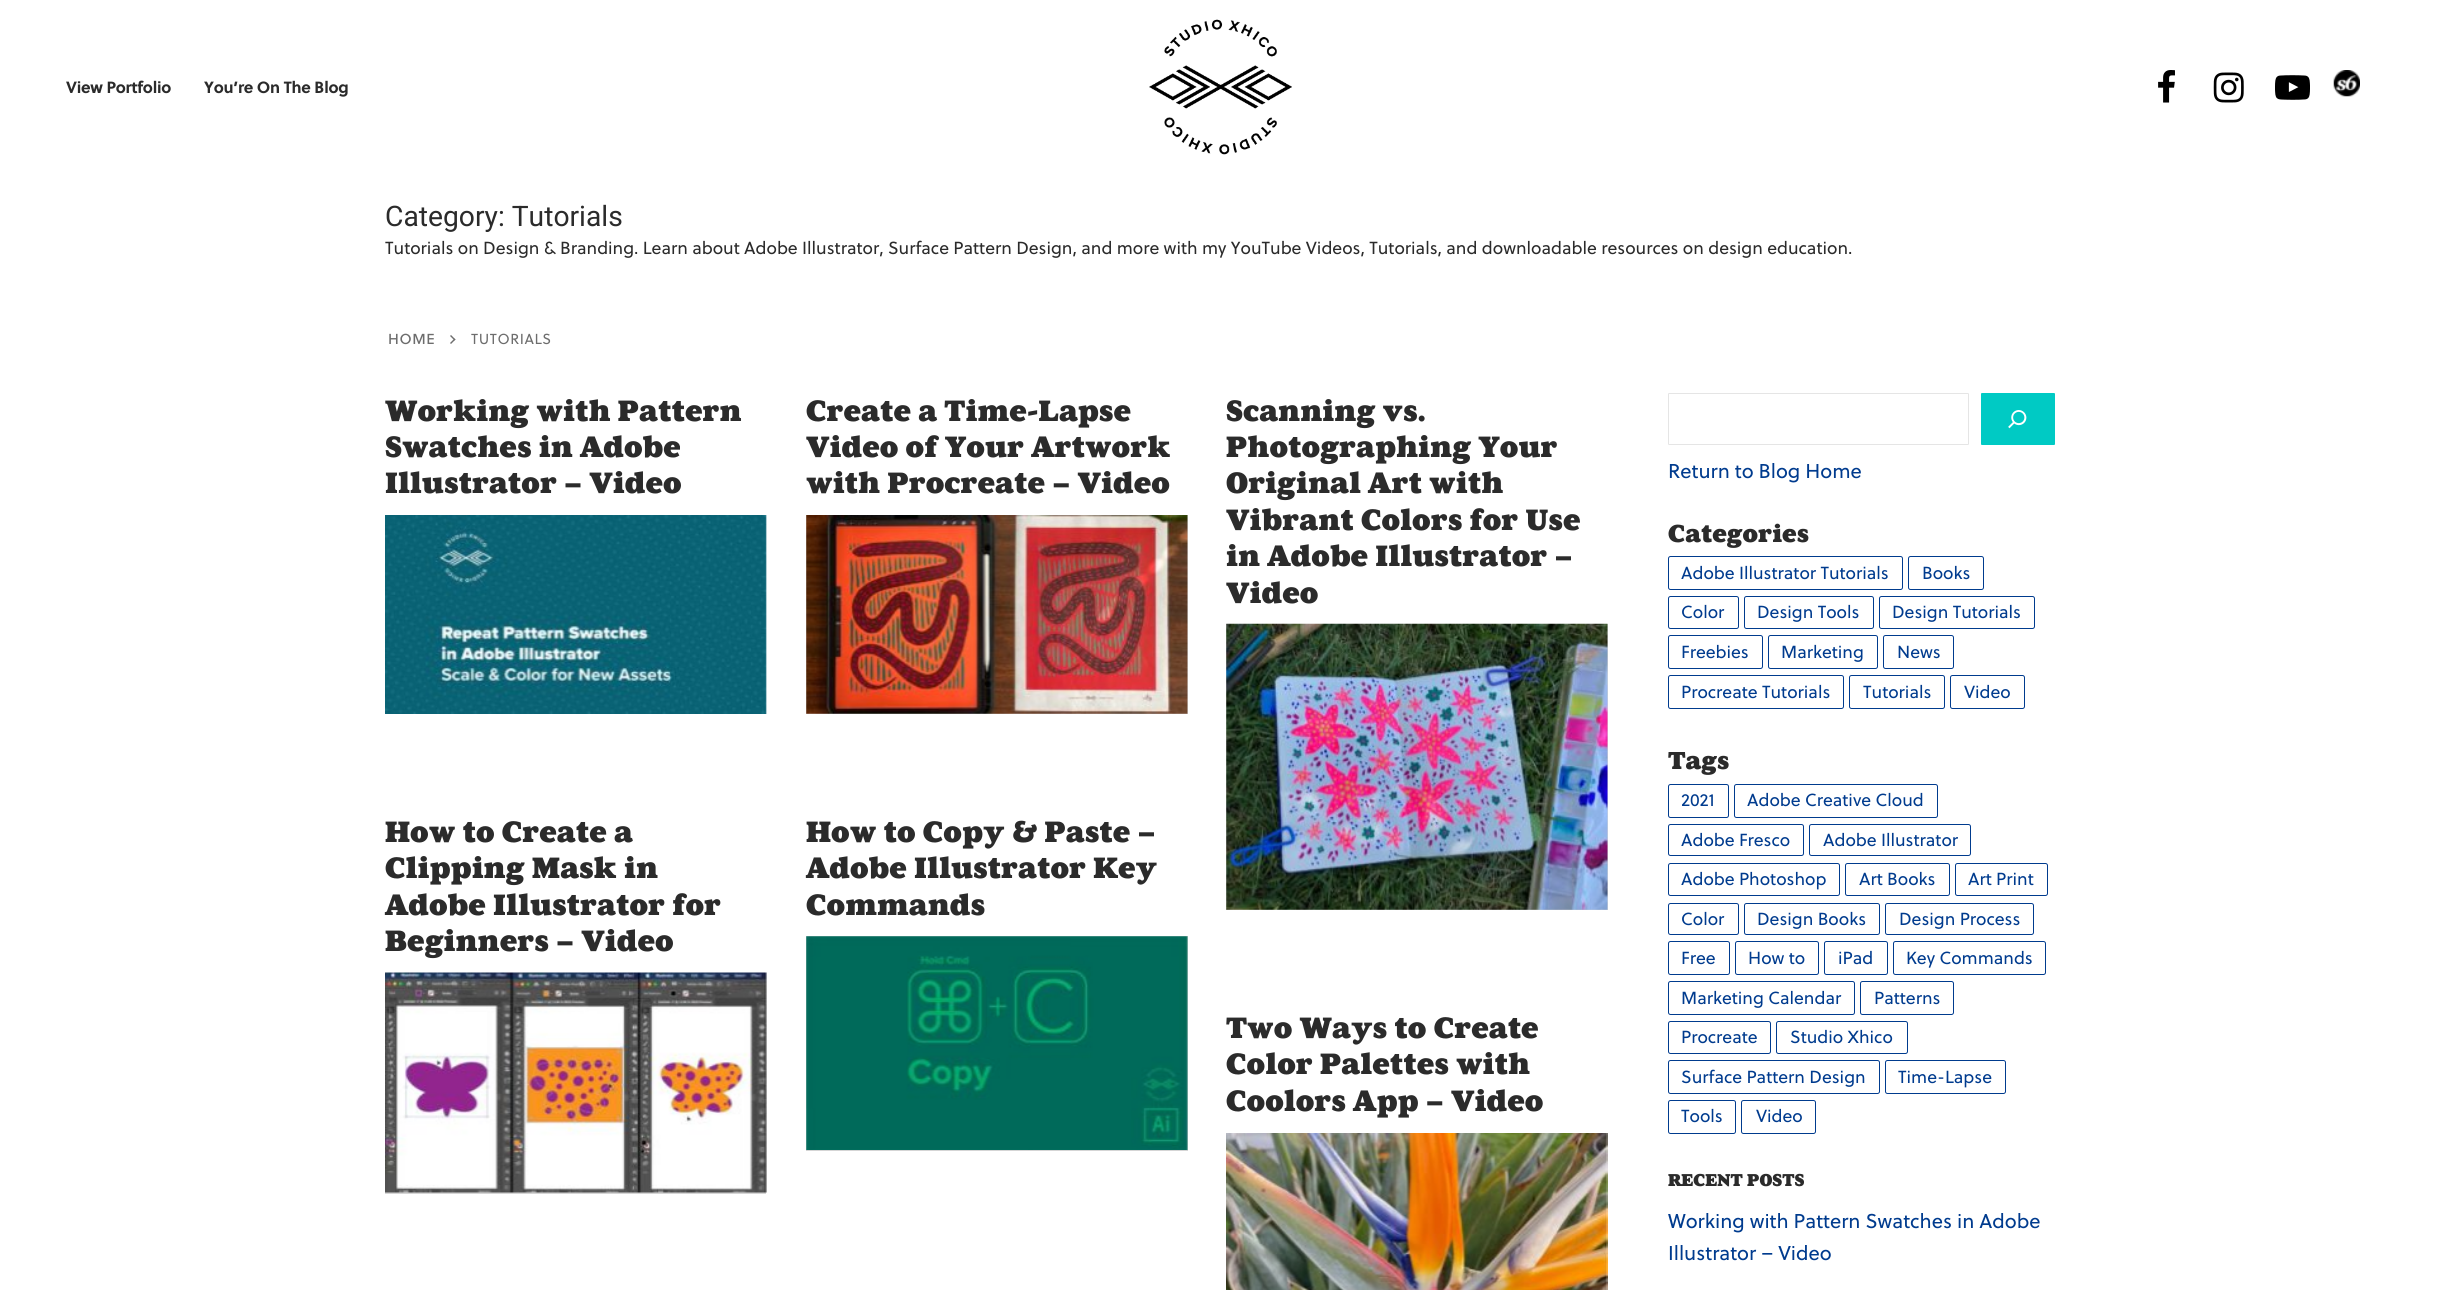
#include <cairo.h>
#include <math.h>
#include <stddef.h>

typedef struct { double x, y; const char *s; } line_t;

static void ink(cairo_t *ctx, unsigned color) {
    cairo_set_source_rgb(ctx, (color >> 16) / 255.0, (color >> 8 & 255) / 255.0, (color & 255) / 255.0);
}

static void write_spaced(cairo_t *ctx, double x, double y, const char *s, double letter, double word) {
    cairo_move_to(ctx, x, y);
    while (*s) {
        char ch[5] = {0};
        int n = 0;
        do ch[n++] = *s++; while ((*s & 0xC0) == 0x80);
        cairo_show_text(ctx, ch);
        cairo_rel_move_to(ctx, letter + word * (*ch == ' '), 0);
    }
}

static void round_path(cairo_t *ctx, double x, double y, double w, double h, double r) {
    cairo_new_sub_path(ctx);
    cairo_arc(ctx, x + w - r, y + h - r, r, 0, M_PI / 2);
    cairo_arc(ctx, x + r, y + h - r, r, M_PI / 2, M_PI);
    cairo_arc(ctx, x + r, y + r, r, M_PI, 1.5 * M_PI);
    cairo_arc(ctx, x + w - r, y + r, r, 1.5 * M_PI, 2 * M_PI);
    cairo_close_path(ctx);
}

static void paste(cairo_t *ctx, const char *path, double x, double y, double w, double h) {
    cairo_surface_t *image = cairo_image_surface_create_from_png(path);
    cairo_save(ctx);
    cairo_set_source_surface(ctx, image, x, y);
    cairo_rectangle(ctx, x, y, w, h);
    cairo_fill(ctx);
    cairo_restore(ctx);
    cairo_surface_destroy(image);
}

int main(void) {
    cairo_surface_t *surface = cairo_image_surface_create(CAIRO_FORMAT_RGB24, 2440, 1290);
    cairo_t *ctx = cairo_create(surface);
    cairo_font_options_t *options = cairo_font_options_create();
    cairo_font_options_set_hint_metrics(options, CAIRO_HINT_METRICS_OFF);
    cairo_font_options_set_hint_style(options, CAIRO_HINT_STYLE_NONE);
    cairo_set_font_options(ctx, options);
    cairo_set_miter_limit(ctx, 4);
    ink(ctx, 0xFFFFFF);
    cairo_paint(ctx);
    cairo_select_font_face(ctx, "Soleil", CAIRO_FONT_SLANT_NORMAL, CAIRO_FONT_WEIGHT_BOLD);
    cairo_set_font_size(ctx, 16.25);
    ink(ctx, 0x2B2B2B);
    write_spaced(ctx, 66, 93, "View Portfolio", -0.25, 0);
    write_spaced(ctx, 204, 93, "You’re On The Blog", -0.25, 0);
    paste(ctx, "media/1.png", 1149, 19, 143, 136);
    paste(ctx, "media/2.png", 2158, 70, 17, 33);
    paste(ctx, "media/3.png", 2213, 72, 31, 31);
    paste(ctx, "media/4.png", 2275, 75, 35, 25);
    paste(ctx, "media/5.png", 2333, 70, 27, 27);
    cairo_select_font_face(ctx, "Roboto", CAIRO_FONT_SLANT_NORMAL, CAIRO_FONT_WEIGHT_NORMAL);
    cairo_set_font_size(ctx, 28.25);
    cairo_move_to(ctx, 385, 226);
    cairo_show_text(ctx, "Category: Tutorials");
    cairo_select_font_face(ctx, "Soleil", CAIRO_FONT_SLANT_NORMAL, CAIRO_FONT_WEIGHT_NORMAL);
    cairo_set_font_size(ctx, 17.5);
    cairo_move_to(ctx, 385, 254);
    cairo_show_text(ctx, "Tutorials on Design & Branding. Learn about Adobe Illustrator, Surface Pattern Design, and more with my YouTube Videos, Tutorials, and downloadable resources on design education.");
    cairo_select_font_face(ctx, "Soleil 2", CAIRO_FONT_SLANT_NORMAL, CAIRO_FONT_WEIGHT_NORMAL);
    cairo_set_font_size(ctx, 14.5);
    ink(ctx, 0x6D6D6D);
    write_spaced(ctx, 388, 344, "HOME", 0.6, 0);
    cairo_new_path(ctx);
    cairo_move_to(ctx, 455.5, 339.5);
    cairo_line_to(ctx, 451, 344);
    cairo_line_to(ctx, 450, 343);
    cairo_line_to(ctx, 454.5, 338.5);
    cairo_close_path(ctx);
    cairo_fill(ctx);
    cairo_new_path(ctx);
    cairo_move_to(ctx, 455.5, 339.5);
    cairo_line_to(ctx, 454.5, 340.5);
    cairo_line_to(ctx, 450, 336);
    cairo_line_to(ctx, 451, 335);
    cairo_close_path(ctx);
    cairo_fill(ctx);
    cairo_select_font_face(ctx, "Soleil", CAIRO_FONT_SLANT_NORMAL, CAIRO_FONT_WEIGHT_NORMAL);
    write_spaced(ctx, 471, 344, "TUTORIALS", 0.6, 0);
    cairo_select_font_face(ctx, "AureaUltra", CAIRO_FONT_SLANT_NORMAL, CAIRO_FONT_WEIGHT_NORMAL);
    cairo_set_font_size(ctx, 30);
    ink(ctx, 0x2B2B2B);
    {
        static const line_t items[] = {
            {385, 421, "Working with Pattern"},
            {385, 457, "Swatches in Adobe"},
            {385, 493, "Illustrator – Video"},
        };
        for (size_t i = 0; i < sizeof items / sizeof *items; i++) {
            cairo_move_to(ctx, items[i].x, items[i].y);
            cairo_show_text(ctx, items[i].s);
        }
    }
    paste(ctx, "media/6.png", 385, 515, 382, 199);
    {
        static const line_t items[] = {
            {806, 421, "Create a Time-Lapse"},
            {806, 457, "Video of Your Artwork"},
            {806, 493, "with Procreate – Video"},
        };
        for (size_t i = 0; i < sizeof items / sizeof *items; i++) {
            cairo_move_to(ctx, items[i].x, items[i].y);
            cairo_show_text(ctx, items[i].s);
        }
    }
    ink(ctx, 0xD5D5D5);
    cairo_rectangle(ctx, 806, 515, 382, 199);
    cairo_fill(ctx);
    paste(ctx, "media/7.png", 806, 515, 382, 199);
    ink(ctx, 0x2B2B2B);
    {
        static const line_t items[] = {
            {1226, 421, "Scanning vs."},
            {1226, 457, "Photographing Your"},
            {1226, 493, "Original Art with"},
            {1226, 530, "Vibrant Colors for Use"},
            {1226, 566, "in Adobe Illustrator –"},
            {1226, 603, "Video"},
        };
        for (size_t i = 0; i < sizeof items / sizeof *items; i++) {
            cairo_move_to(ctx, items[i].x, items[i].y);
            cairo_show_text(ctx, items[i].s);
        }
    }
    ink(ctx, 0xD5D5D5);
    cairo_rectangle(ctx, 1226, 624, 382, 286);
    cairo_fill(ctx);
    paste(ctx, "media/8.png", 1226, 623, 382, 287);
    ink(ctx, 0x2B2B2B);
    {
        static const line_t items[] = {
            {385, 842, "How to Create a"},
            {385, 878, "Clipping Mask in"},
            {385, 915, "Adobe Illustrator for"},
            {385, 951, "Beginners – Video"},
        };
        for (size_t i = 0; i < sizeof items / sizeof *items; i++) {
            cairo_move_to(ctx, items[i].x, items[i].y);
            cairo_show_text(ctx, items[i].s);
        }
    }
    ink(ctx, 0xD5D5D5);
    cairo_rectangle(ctx, 385, 973, 381, 221);
    cairo_fill(ctx);
    paste(ctx, "media/9.png", 385, 972, 382, 221);
    ink(ctx, 0x2B2B2B);
    {
        static const line_t items[] = {
            {806, 842, "How to Copy & Paste –"},
            {806, 878, "Adobe Illustrator Key"},
            {806, 915, "Commands"},
        };
        for (size_t i = 0; i < sizeof items / sizeof *items; i++) {
            cairo_move_to(ctx, items[i].x, items[i].y);
            cairo_show_text(ctx, items[i].s);
        }
    }
    ink(ctx, 0xD5D5D5);
    cairo_rectangle(ctx, 806, 936, 382, 215);
    cairo_fill(ctx);
    paste(ctx, "media/10.png", 806, 936, 382, 214);
    ink(ctx, 0x2B2B2B);
    {
        static const line_t items[] = {
            {1226, 1038, "Two Ways to Create"},
            {1226, 1074, "Color Palettes with"},
            {1226, 1111, "Coolors App – Video"},
        };
        for (size_t i = 0; i < sizeof items / sizeof *items; i++) {
            cairo_move_to(ctx, items[i].x, items[i].y);
            cairo_show_text(ctx, items[i].s);
        }
    }
    paste(ctx, "media/11.png", 1226, 1133, 382, 157);
    round_path(ctx, 1668.5, 393.5, 300, 51, 0.5);
    ink(ctx, 0xE5E5E5);
    cairo_set_line_width(ctx, 1);
    cairo_stroke(ctx);
    ink(ctx, 0x00CAC4);
    round_path(ctx, 1981, 393, 74, 52, 1);
    cairo_fill(ctx);
    paste(ctx, "media/12.png", 2008, 410, 19, 19);
    cairo_select_font_face(ctx, "Soleil", CAIRO_FONT_SLANT_NORMAL, CAIRO_FONT_WEIGHT_NORMAL);
    cairo_set_font_size(ctx, 20);
    ink(ctx, 0x003B8E);
    cairo_move_to(ctx, 1668, 478);
    cairo_show_text(ctx, "Return to Blog Home");
    cairo_select_font_face(ctx, "AureaUltra", CAIRO_FONT_SLANT_NORMAL, CAIRO_FONT_WEIGHT_NORMAL);
    cairo_set_font_size(ctx, 25);
    ink(ctx, 0x2B2B2B);
    cairo_move_to(ctx, 1668, 542);
    cairo_show_text(ctx, "Categories");
    round_path(ctx, 1668.5, 556.5, 234, 33, 2);
    ink(ctx, 0x003B8E);
    cairo_stroke(ctx);
    cairo_select_font_face(ctx, "Soleil", CAIRO_FONT_SLANT_NORMAL, CAIRO_FONT_WEIGHT_NORMAL);
    cairo_set_font_size(ctx, 17.5);
    cairo_move_to(ctx, 1681, 579);
    cairo_show_text(ctx, "Adobe Illustrator Tutorials");
    round_path(ctx, 1908.5, 556.5, 75, 33, 2);
    cairo_stroke(ctx);
    cairo_move_to(ctx, 1922, 579);
    cairo_show_text(ctx, "Books");
    round_path(ctx, 1668.5, 596.5, 70, 32, 2);
    cairo_stroke(ctx);
    cairo_move_to(ctx, 1681, 618);
    cairo_show_text(ctx, "Color");
    round_path(ctx, 1744.5, 596.5, 129, 32, 2);
    cairo_stroke(ctx);
    cairo_move_to(ctx, 1757, 618);
    cairo_show_text(ctx, "Design Tools");
    round_path(ctx, 1879.5, 596.5, 155, 32, 2);
    cairo_stroke(ctx);
    cairo_move_to(ctx, 1892, 618);
    cairo_show_text(ctx, "Design Tutorials");
    round_path(ctx, 1668.5, 635.5, 94, 33, 2);
    cairo_stroke(ctx);
    cairo_move_to(ctx, 1681, 658);
    cairo_show_text(ctx, "Freebies");
    round_path(ctx, 1768.5, 635.5, 109, 33, 2);
    cairo_stroke(ctx);
    cairo_move_to(ctx, 1781, 658);
    cairo_show_text(ctx, "Marketing");
    round_path(ctx, 1883.5, 635.5, 70, 33, 2);
    cairo_stroke(ctx);
    cairo_move_to(ctx, 1897, 658);
    cairo_show_text(ctx, "News");
    round_path(ctx, 1668.5, 675.5, 175, 33, 2);
    cairo_stroke(ctx);
    cairo_move_to(ctx, 1681, 698);
    cairo_show_text(ctx, "Procreate Tutorials");
    round_path(ctx, 1849.5, 675.5, 95, 33, 2);
    cairo_stroke(ctx);
    cairo_move_to(ctx, 1863, 698);
    cairo_show_text(ctx, "Tutorials");
    round_path(ctx, 1950.5, 675.5, 74, 33, 2);
    cairo_stroke(ctx);
    cairo_move_to(ctx, 1964, 698);
    cairo_show_text(ctx, "Video");
    cairo_select_font_face(ctx, "AureaUltra", CAIRO_FONT_SLANT_NORMAL, CAIRO_FONT_WEIGHT_NORMAL);
    cairo_set_font_size(ctx, 25);
    ink(ctx, 0x2B2B2B);
    cairo_move_to(ctx, 1668, 769);
    cairo_show_text(ctx, "Tags");
    round_path(ctx, 1668.5, 784.5, 60, 33, 2);
    ink(ctx, 0x003B8E);
    cairo_stroke(ctx);
    cairo_select_font_face(ctx, "Soleil", CAIRO_FONT_SLANT_NORMAL, CAIRO_FONT_WEIGHT_NORMAL);
    cairo_set_font_size(ctx, 17.5);
    cairo_move_to(ctx, 1681, 806);
    cairo_show_text(ctx, "2021");
    round_path(ctx, 1734.5, 784.5, 203, 33, 2);
    cairo_stroke(ctx);
    cairo_move_to(ctx, 1747, 806);
    cairo_show_text(ctx, "Adobe Creative Cloud");
    round_path(ctx, 1668.5, 824.5, 135, 31, 2);
    cairo_stroke(ctx);
    cairo_move_to(ctx, 1681, 846);
    cairo_show_text(ctx, "Adobe Fresco");
    round_path(ctx, 1809.5, 824.5, 161, 31, 2);
    cairo_stroke(ctx);
    cairo_move_to(ctx, 1823, 846);
    cairo_show_text(ctx, "Adobe Illustrator");
    round_path(ctx, 1668.5, 863.5, 171, 32, 2);
    cairo_stroke(ctx);
    cairo_move_to(ctx, 1681, 885);
    cairo_show_text(ctx, "Adobe Photoshop");
    round_path(ctx, 1845.5, 863.5, 104, 32, 2);
    cairo_stroke(ctx);
    cairo_move_to(ctx, 1859, 885);
    cairo_show_text(ctx, "Art Books");
    round_path(ctx, 1955.5, 863.5, 92, 32, 2);
    cairo_stroke(ctx);
    cairo_move_to(ctx, 1968, 885);
    cairo_show_text(ctx, "Art Print");
    round_path(ctx, 1668.5, 903.5, 70, 31, 2);
    cairo_stroke(ctx);
    cairo_move_to(ctx, 1681, 925);
    cairo_show_text(ctx, "Color");
    round_path(ctx, 1744.5, 903.5, 135, 31, 2);
    cairo_stroke(ctx);
    cairo_move_to(ctx, 1757, 925);
    cairo_show_text(ctx, "Design Books");
    round_path(ctx, 1885.5, 903.5, 148, 31, 2);
    cairo_stroke(ctx);
    cairo_move_to(ctx, 1899, 925);
    cairo_show_text(ctx, "Design Process");
    round_path(ctx, 1668.5, 941.5, 61, 33, 2);
    cairo_stroke(ctx);
    cairo_move_to(ctx, 1681, 964);
    cairo_show_text(ctx, "Free");
    round_path(ctx, 1735.5, 941.5, 83, 33, 2);
    cairo_stroke(ctx);
    cairo_move_to(ctx, 1748, 964);
    cairo_show_text(ctx, "How to");
    round_path(ctx, 1824.5, 941.5, 63, 33, 2);
    cairo_stroke(ctx);
    cairo_move_to(ctx, 1838, 964);
    cairo_show_text(ctx, "iPad");
    round_path(ctx, 1893.5, 941.5, 152, 33, 2);
    cairo_stroke(ctx);
    cairo_move_to(ctx, 1906, 964);
    cairo_show_text(ctx, "Key Commands");
    round_path(ctx, 1668.5, 981.5, 186, 33, 2);
    cairo_stroke(ctx);
    cairo_move_to(ctx, 1681, 1004);
    cairo_show_text(ctx, "Marketing Calendar");
    round_path(ctx, 1860.5, 981.5, 93, 33, 2);
    cairo_stroke(ctx);
    cairo_move_to(ctx, 1874, 1004);
    cairo_show_text(ctx, "Patterns");
    round_path(ctx, 1668.5, 1021.5, 102, 32, 2);
    cairo_stroke(ctx);
    cairo_move_to(ctx, 1681, 1043);
    cairo_show_text(ctx, "Procreate");
    round_path(ctx, 1776.5, 1021.5, 131, 32, 2);
    cairo_stroke(ctx);
    cairo_move_to(ctx, 1790, 1043);
    cairo_show_text(ctx, "Studio Xhico");
    round_path(ctx, 1668.5, 1060.5, 211, 33, 2);
    cairo_stroke(ctx);
    cairo_move_to(ctx, 1681, 1083);
    cairo_show_text(ctx, "Surface Pattern Design");
    round_path(ctx, 1885.5, 1060.5, 120, 33, 2);
    cairo_stroke(ctx);
    cairo_move_to(ctx, 1898, 1083);
    cairo_show_text(ctx, "Time-Lapse");
    round_path(ctx, 1668.5, 1100.5, 67, 33, 2);
    cairo_stroke(ctx);
    cairo_move_to(ctx, 1681, 1122);
    cairo_show_text(ctx, "Tools");
    round_path(ctx, 1741.5, 1100.5, 74, 33, 2);
    cairo_stroke(ctx);
    cairo_move_to(ctx, 1756, 1122);
    cairo_show_text(ctx, "Video");
    cairo_select_font_face(ctx, "AureaUltra", CAIRO_FONT_SLANT_NORMAL, CAIRO_FONT_WEIGHT_NORMAL);
    ink(ctx, 0x2B2B2B);
    cairo_move_to(ctx, 1668, 1186);
    cairo_show_text(ctx, "RECENT POSTS");
    cairo_select_font_face(ctx, "Soleil", CAIRO_FONT_SLANT_NORMAL, CAIRO_FONT_WEIGHT_NORMAL);
    cairo_set_font_size(ctx, 20);
    ink(ctx, 0x003B8E);
    cairo_move_to(ctx, 1668, 1228);
    cairo_show_text(ctx, "Working with Pattern Swatches in Adobe");
    cairo_move_to(ctx, 1668, 1260);
    cairo_show_text(ctx, "Illustrator – Video");
    cairo_surface_write_to_png(surface, "image.png");
    cairo_font_options_destroy(options);
    cairo_destroy(ctx);
    cairo_surface_destroy(surface);
    return 0;
}
